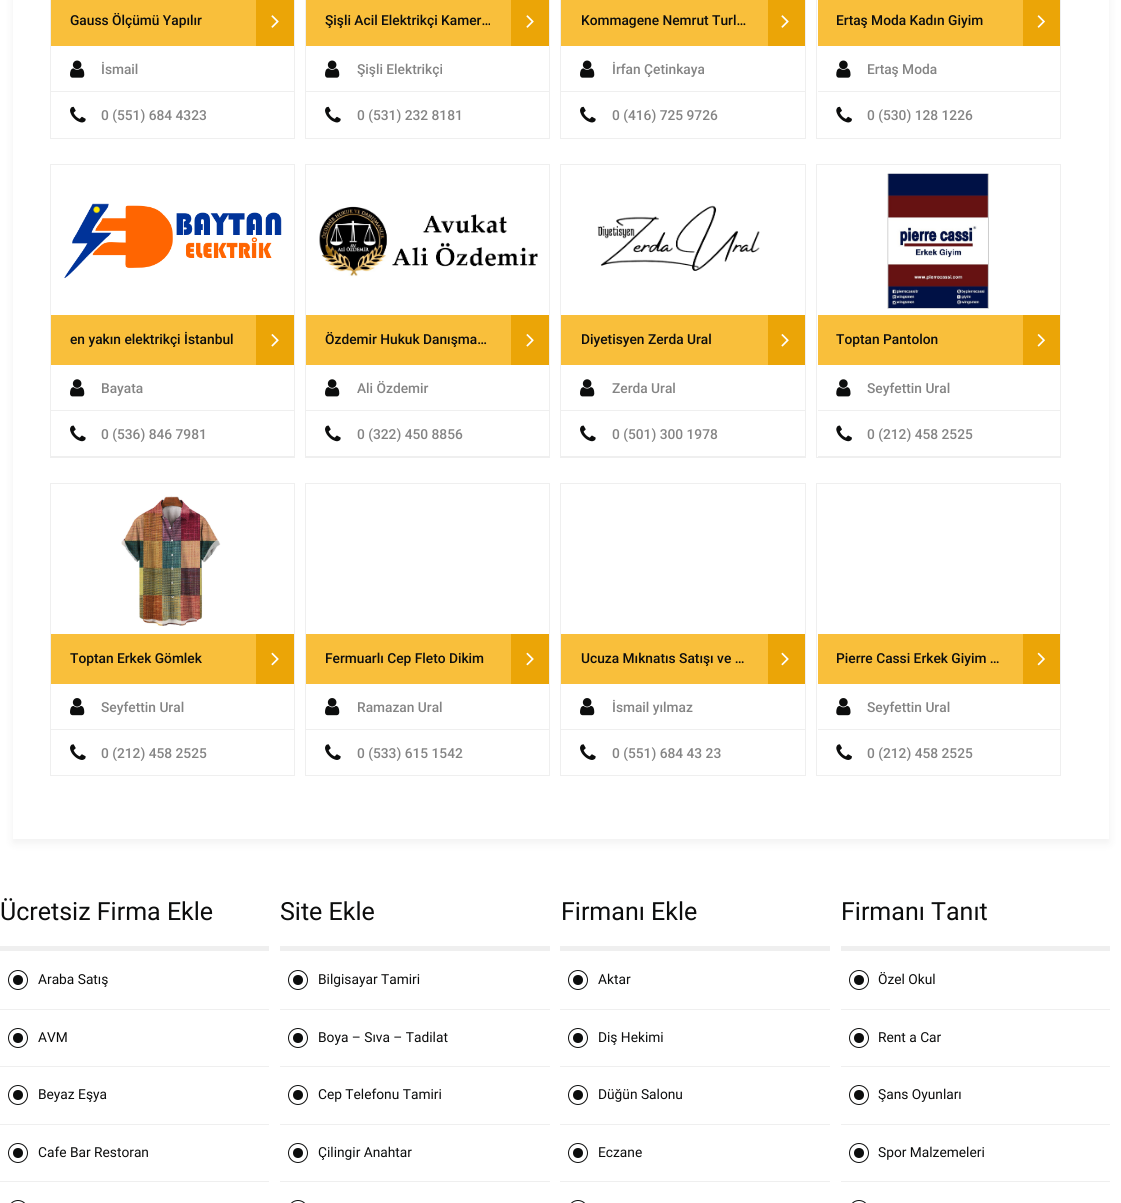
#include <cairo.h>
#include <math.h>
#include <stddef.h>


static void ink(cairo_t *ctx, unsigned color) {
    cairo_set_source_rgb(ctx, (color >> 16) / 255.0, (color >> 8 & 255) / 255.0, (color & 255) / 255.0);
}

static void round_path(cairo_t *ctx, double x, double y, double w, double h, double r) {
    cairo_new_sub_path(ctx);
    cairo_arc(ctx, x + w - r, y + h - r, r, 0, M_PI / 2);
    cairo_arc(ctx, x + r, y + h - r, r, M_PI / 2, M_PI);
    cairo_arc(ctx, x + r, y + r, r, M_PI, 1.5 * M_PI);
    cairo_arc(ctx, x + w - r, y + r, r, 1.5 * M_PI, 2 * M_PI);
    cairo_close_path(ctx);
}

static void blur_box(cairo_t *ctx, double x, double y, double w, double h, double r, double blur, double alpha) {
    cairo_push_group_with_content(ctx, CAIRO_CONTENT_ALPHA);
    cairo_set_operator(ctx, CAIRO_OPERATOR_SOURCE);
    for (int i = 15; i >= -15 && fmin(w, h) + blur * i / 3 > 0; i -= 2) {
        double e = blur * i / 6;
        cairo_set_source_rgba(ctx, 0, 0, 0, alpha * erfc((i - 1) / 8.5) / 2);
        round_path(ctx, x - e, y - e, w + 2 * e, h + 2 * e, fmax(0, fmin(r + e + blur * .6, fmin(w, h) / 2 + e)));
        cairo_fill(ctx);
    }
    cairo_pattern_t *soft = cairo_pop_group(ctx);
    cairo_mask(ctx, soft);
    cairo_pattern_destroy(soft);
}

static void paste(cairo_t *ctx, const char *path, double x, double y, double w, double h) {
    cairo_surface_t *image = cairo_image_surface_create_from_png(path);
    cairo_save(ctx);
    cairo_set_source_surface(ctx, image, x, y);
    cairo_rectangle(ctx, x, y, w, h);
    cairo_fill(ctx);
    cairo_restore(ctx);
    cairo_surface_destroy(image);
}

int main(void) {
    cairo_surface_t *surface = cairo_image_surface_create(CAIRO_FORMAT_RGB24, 1121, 1203);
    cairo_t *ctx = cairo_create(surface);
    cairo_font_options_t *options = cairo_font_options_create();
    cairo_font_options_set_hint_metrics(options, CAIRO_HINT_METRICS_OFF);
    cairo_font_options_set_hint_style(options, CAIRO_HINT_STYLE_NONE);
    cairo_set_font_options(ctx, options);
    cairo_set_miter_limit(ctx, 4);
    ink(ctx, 0xFFFFFF);
    cairo_paint(ctx);
    ink(ctx, 0x000000);
    blur_box(ctx, 13, -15, 1096, 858, 0, 5, 0.06);
    ink(ctx, 0xFFFFFF);
    cairo_rectangle(ctx, 13, 0, 1096, 839);
    cairo_fill(ctx);
    cairo_rectangle(ctx, 50.5, -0.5, 244, 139);
    ink(ctx, 0xEFEFEF);
    cairo_set_line_width(ctx, 1);
    cairo_stroke(ctx);
    ink(ctx, 0xF9BF3B);
    cairo_rectangle(ctx, 51, 0, 205, 46);
    cairo_fill(ctx);
    cairo_select_font_face(ctx, "Roboto Medium", CAIRO_FONT_SLANT_NORMAL, CAIRO_FONT_WEIGHT_NORMAL);
    cairo_set_font_size(ctx, 13.75);
    ink(ctx, 0x0C0D0D);
    cairo_move_to(ctx, 70, 25);
    cairo_show_text(ctx, "Gauss Ölçümü Yapılır");
    ink(ctx, 0xEBA507);
    cairo_rectangle(ctx, 256, 0, 38, 46);
    cairo_fill(ctx);
    paste(ctx, "media/1.png", 271, 15, 8, 13);
    ink(ctx, 0xEFEFEF);
    cairo_rectangle(ctx, 51, 91, 243, 1);
    cairo_fill(ctx);
    paste(ctx, "media/2.png", 70, 60, 15, 18);
    ink(ctx, 0x848484);
    cairo_move_to(ctx, 101, 74);
    cairo_show_text(ctx, "İsmail");
    paste(ctx, "media/3.png", 70, 106, 16, 17);
    cairo_move_to(ctx, 101, 120);
    cairo_show_text(ctx, "0 (551) 684 4323");
    cairo_rectangle(ctx, 305.5, -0.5, 244, 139);
    ink(ctx, 0xEFEFEF);
    cairo_stroke(ctx);
    ink(ctx, 0xF9BF3B);
    cairo_rectangle(ctx, 306, 0, 205, 46);
    cairo_fill(ctx);
    ink(ctx, 0x0C0D0D);
    cairo_move_to(ctx, 325, 25);
    cairo_show_text(ctx, "Şişli Acil Elektrikçi Kamer…");
    ink(ctx, 0xEBA507);
    cairo_rectangle(ctx, 511, 0, 38, 46);
    cairo_fill(ctx);
    paste(ctx, "media/1.png", 526, 15, 8, 13);
    ink(ctx, 0xEFEFEF);
    cairo_rectangle(ctx, 306, 91, 243, 1);
    cairo_fill(ctx);
    paste(ctx, "media/2.png", 325, 60, 15, 18);
    ink(ctx, 0x848484);
    cairo_move_to(ctx, 357, 74);
    cairo_show_text(ctx, "Şişli Elektrikçi");
    paste(ctx, "media/3.png", 325, 106, 16, 17);
    cairo_move_to(ctx, 357, 120);
    cairo_show_text(ctx, "0 (531) 232 8181");
    cairo_rectangle(ctx, 560.5, -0.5, 245, 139);
    ink(ctx, 0xEFEFEF);
    cairo_stroke(ctx);
    ink(ctx, 0xF9BF3B);
    cairo_rectangle(ctx, 561, 0, 207, 46);
    cairo_fill(ctx);
    ink(ctx, 0x0C0D0D);
    cairo_move_to(ctx, 581, 25);
    cairo_show_text(ctx, "Kommagene Nemrut Turl…");
    ink(ctx, 0xEBA507);
    cairo_rectangle(ctx, 768, 0, 37, 46);
    cairo_fill(ctx);
    paste(ctx, "media/1.png", 781, 15, 8, 13);
    ink(ctx, 0xEFEFEF);
    cairo_rectangle(ctx, 561, 91, 244, 1);
    cairo_fill(ctx);
    paste(ctx, "media/2.png", 580, 60, 15, 18);
    ink(ctx, 0x848484);
    cairo_move_to(ctx, 612, 74);
    cairo_show_text(ctx, "İrfan Çetinkaya");
    paste(ctx, "media/3.png", 580, 106, 16, 17);
    cairo_move_to(ctx, 612, 120);
    cairo_show_text(ctx, "0 (416) 725 9726");
    cairo_rectangle(ctx, 816.5, -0.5, 244, 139);
    ink(ctx, 0xEFEFEF);
    cairo_stroke(ctx);
    ink(ctx, 0xF9BF3B);
    cairo_rectangle(ctx, 818, 0, 205, 46);
    cairo_fill(ctx);
    ink(ctx, 0x0C0D0D);
    cairo_move_to(ctx, 836, 25);
    cairo_show_text(ctx, "Ertaş Moda Kadın Giyim");
    ink(ctx, 0xEBA507);
    cairo_rectangle(ctx, 1023, 0, 37, 46);
    cairo_fill(ctx);
    paste(ctx, "media/4.png", 1037, 15, 8, 13);
    ink(ctx, 0xEFEFEF);
    cairo_rectangle(ctx, 818, 91, 242, 1);
    cairo_fill(ctx);
    paste(ctx, "media/5.png", 836, 60, 15, 18);
    ink(ctx, 0x848484);
    cairo_move_to(ctx, 867, 74);
    cairo_show_text(ctx, "Ertaş Moda");
    paste(ctx, "media/6.png", 836, 106, 16, 17);
    cairo_move_to(ctx, 867, 120);
    cairo_show_text(ctx, "0 (530) 128 1226");
    cairo_rectangle(ctx, 50.5, 164.5, 244, 293);
    ink(ctx, 0xEFEFEF);
    cairo_stroke(ctx);
    paste(ctx, "media/7.png", 64, 203, 218, 76);
    ink(ctx, 0xF9BF3B);
    cairo_rectangle(ctx, 51, 315, 205, 50);
    cairo_fill(ctx);
    ink(ctx, 0x0C0D0D);
    cairo_move_to(ctx, 70, 344);
    cairo_show_text(ctx, "en yakın elektrikçi İstanbul");
    ink(ctx, 0xEBA507);
    cairo_rectangle(ctx, 256, 315, 38, 50);
    cairo_fill(ctx);
    paste(ctx, "media/8.png", 271, 334, 8, 13);
    ink(ctx, 0xEFEFEF);
    cairo_rectangle(ctx, 51, 410, 243, 1);
    cairo_fill(ctx);
    paste(ctx, "media/9.png", 70, 379, 15, 18);
    ink(ctx, 0x848484);
    cairo_move_to(ctx, 101, 393);
    cairo_show_text(ctx, "Bayata");
    ink(ctx, 0xEFEFEF);
    cairo_rectangle(ctx, 51, 456, 243, 1);
    cairo_fill(ctx);
    paste(ctx, "media/10.png", 70, 425, 16, 17);
    ink(ctx, 0x848484);
    cairo_move_to(ctx, 101, 439);
    cairo_show_text(ctx, "0 (536) 846 7981");
    cairo_rectangle(ctx, 305.5, 164.5, 244, 293);
    ink(ctx, 0xEFEFEF);
    cairo_stroke(ctx);
    paste(ctx, "media/11.png", 319, 206, 219, 71);
    ink(ctx, 0xF9BF3B);
    cairo_rectangle(ctx, 306, 315, 205, 50);
    cairo_fill(ctx);
    ink(ctx, 0x0C0D0D);
    cairo_move_to(ctx, 325, 344);
    cairo_show_text(ctx, "Özdemir Hukuk Danışma…");
    ink(ctx, 0xEBA507);
    cairo_rectangle(ctx, 511, 315, 38, 50);
    cairo_fill(ctx);
    paste(ctx, "media/8.png", 526, 334, 8, 13);
    ink(ctx, 0xEFEFEF);
    cairo_rectangle(ctx, 306, 410, 243, 1);
    cairo_fill(ctx);
    paste(ctx, "media/9.png", 325, 379, 15, 18);
    ink(ctx, 0x848484);
    cairo_move_to(ctx, 357, 393);
    cairo_show_text(ctx, "Ali Özdemir");
    ink(ctx, 0xEFEFEF);
    cairo_rectangle(ctx, 306, 456, 243, 1);
    cairo_fill(ctx);
    paste(ctx, "media/10.png", 325, 425, 16, 17);
    ink(ctx, 0x848484);
    cairo_move_to(ctx, 357, 439);
    cairo_show_text(ctx, "0 (322) 450 8856");
    cairo_rectangle(ctx, 560.5, 164.5, 245, 293);
    ink(ctx, 0xEFEFEF);
    cairo_stroke(ctx);
    paste(ctx, "media/12.png", 597, 205, 163, 66);
    ink(ctx, 0xF9BF3B);
    cairo_rectangle(ctx, 561, 315, 207, 50);
    cairo_fill(ctx);
    ink(ctx, 0x0C0D0D);
    cairo_move_to(ctx, 581, 344);
    cairo_show_text(ctx, "Diyetisyen Zerda Ural");
    ink(ctx, 0xEBA507);
    cairo_rectangle(ctx, 768, 315, 37, 50);
    cairo_fill(ctx);
    paste(ctx, "media/8.png", 781, 334, 8, 13);
    ink(ctx, 0xEFEFEF);
    cairo_rectangle(ctx, 561, 410, 244, 1);
    cairo_fill(ctx);
    paste(ctx, "media/9.png", 580, 379, 15, 18);
    ink(ctx, 0x848484);
    cairo_move_to(ctx, 612, 393);
    cairo_show_text(ctx, "Zerda Ural");
    ink(ctx, 0xEFEFEF);
    cairo_rectangle(ctx, 561, 456, 244, 1);
    cairo_fill(ctx);
    paste(ctx, "media/10.png", 580, 425, 16, 17);
    ink(ctx, 0x848484);
    cairo_move_to(ctx, 612, 439);
    cairo_show_text(ctx, "0 (501) 300 1978");
    cairo_rectangle(ctx, 816.5, 164.5, 244, 293);
    ink(ctx, 0xEFEFEF);
    cairo_stroke(ctx);
    paste(ctx, "media/13.png", 887, 173, 102, 136);
    ink(ctx, 0xF9BF3B);
    cairo_rectangle(ctx, 818, 315, 205, 50);
    cairo_fill(ctx);
    ink(ctx, 0x0C0D0D);
    cairo_move_to(ctx, 836, 344);
    cairo_show_text(ctx, "Toptan Pantolon");
    ink(ctx, 0xEBA507);
    cairo_rectangle(ctx, 1023, 315, 37, 50);
    cairo_fill(ctx);
    paste(ctx, "media/14.png", 1037, 334, 8, 13);
    ink(ctx, 0xEFEFEF);
    cairo_rectangle(ctx, 818, 410, 242, 1);
    cairo_fill(ctx);
    paste(ctx, "media/15.png", 836, 379, 15, 18);
    ink(ctx, 0x848484);
    cairo_move_to(ctx, 867, 393);
    cairo_show_text(ctx, "Seyfettin Ural");
    ink(ctx, 0xEFEFEF);
    cairo_rectangle(ctx, 818, 456, 242, 1);
    cairo_fill(ctx);
    paste(ctx, "media/16.png", 836, 425, 16, 17);
    ink(ctx, 0x848484);
    cairo_move_to(ctx, 867, 439);
    cairo_show_text(ctx, "0 (212) 458 2525");
    cairo_rectangle(ctx, 50.5, 483.5, 244, 292);
    ink(ctx, 0xEFEFEF);
    cairo_stroke(ctx);
    paste(ctx, "media/17.png", 121, 495, 100, 131);
    ink(ctx, 0xF9BF3B);
    cairo_rectangle(ctx, 51, 634, 205, 50);
    cairo_fill(ctx);
    ink(ctx, 0x0C0D0D);
    cairo_move_to(ctx, 70, 663);
    cairo_show_text(ctx, "Toptan Erkek Gömlek");
    ink(ctx, 0xEBA507);
    cairo_rectangle(ctx, 256, 634, 38, 50);
    cairo_fill(ctx);
    paste(ctx, "media/18.png", 271, 652, 8, 14);
    ink(ctx, 0xEFEFEF);
    cairo_rectangle(ctx, 51, 729, 243, 1);
    cairo_fill(ctx);
    paste(ctx, "media/19.png", 70, 698, 15, 18);
    ink(ctx, 0x848484);
    cairo_move_to(ctx, 101, 712);
    cairo_show_text(ctx, "Seyfettin Ural");
    paste(ctx, "media/20.png", 70, 744, 16, 16);
    cairo_move_to(ctx, 101, 758);
    cairo_show_text(ctx, "0 (212) 458 2525");
    cairo_rectangle(ctx, 305.5, 483.5, 244, 292);
    ink(ctx, 0xEFEFEF);
    cairo_stroke(ctx);
    ink(ctx, 0xF9BF3B);
    cairo_rectangle(ctx, 306, 634, 205, 50);
    cairo_fill(ctx);
    ink(ctx, 0x0C0D0D);
    cairo_move_to(ctx, 325, 663);
    cairo_show_text(ctx, "Fermuarlı Cep Fleto Dikim");
    ink(ctx, 0xEBA507);
    cairo_rectangle(ctx, 511, 634, 38, 50);
    cairo_fill(ctx);
    paste(ctx, "media/18.png", 526, 652, 8, 14);
    ink(ctx, 0xEFEFEF);
    cairo_rectangle(ctx, 306, 729, 243, 1);
    cairo_fill(ctx);
    paste(ctx, "media/19.png", 325, 698, 15, 18);
    ink(ctx, 0x848484);
    cairo_move_to(ctx, 357, 712);
    cairo_show_text(ctx, "Ramazan Ural");
    paste(ctx, "media/20.png", 325, 744, 16, 16);
    cairo_move_to(ctx, 357, 758);
    cairo_show_text(ctx, "0 (533) 615 1542");
    cairo_rectangle(ctx, 560.5, 483.5, 245, 292);
    ink(ctx, 0xEFEFEF);
    cairo_stroke(ctx);
    ink(ctx, 0xF9BF3B);
    cairo_rectangle(ctx, 561, 634, 207, 50);
    cairo_fill(ctx);
    ink(ctx, 0x0C0D0D);
    cairo_move_to(ctx, 581, 663);
    cairo_show_text(ctx, "Ucuza Mıknatıs Satışı ve …");
    ink(ctx, 0xEBA507);
    cairo_rectangle(ctx, 768, 634, 37, 50);
    cairo_fill(ctx);
    paste(ctx, "media/18.png", 781, 652, 8, 14);
    ink(ctx, 0xEFEFEF);
    cairo_rectangle(ctx, 561, 729, 244, 1);
    cairo_fill(ctx);
    paste(ctx, "media/19.png", 580, 698, 15, 18);
    ink(ctx, 0x848484);
    cairo_move_to(ctx, 612, 712);
    cairo_show_text(ctx, "İsmail yılmaz");
    paste(ctx, "media/20.png", 580, 744, 16, 16);
    cairo_move_to(ctx, 612, 758);
    cairo_show_text(ctx, "0 (551) 684 43 23");
    cairo_rectangle(ctx, 816.5, 483.5, 244, 292);
    ink(ctx, 0xEFEFEF);
    cairo_stroke(ctx);
    ink(ctx, 0xF9BF3B);
    cairo_rectangle(ctx, 818, 634, 205, 50);
    cairo_fill(ctx);
    ink(ctx, 0x0C0D0D);
    cairo_move_to(ctx, 836, 663);
    cairo_show_text(ctx, "Pierre Cassi Erkek Giyim …");
    ink(ctx, 0xEBA507);
    cairo_rectangle(ctx, 1023, 634, 37, 50);
    cairo_fill(ctx);
    paste(ctx, "media/21.png", 1037, 652, 8, 14);
    ink(ctx, 0xEFEFEF);
    cairo_rectangle(ctx, 818, 729, 242, 1);
    cairo_fill(ctx);
    paste(ctx, "media/22.png", 836, 698, 15, 18);
    ink(ctx, 0x848484);
    cairo_move_to(ctx, 867, 712);
    cairo_show_text(ctx, "Seyfettin Ural");
    paste(ctx, "media/23.png", 836, 744, 16, 16);
    cairo_move_to(ctx, 867, 758);
    cairo_show_text(ctx, "0 (212) 458 2525");
    ink(ctx, 0xEFEFEF);
    cairo_rectangle(ctx, 0, 946, 269, 5);
    cairo_fill(ctx);
    cairo_select_font_face(ctx, "Roboto", CAIRO_FONT_SLANT_NORMAL, CAIRO_FONT_WEIGHT_NORMAL);
    cairo_set_font_size(ctx, 25);
    ink(ctx, 0x0C0D0D);
    cairo_move_to(ctx, 0, 920);
    cairo_show_text(ctx, "Ücretsiz Firma Ekle");
    cairo_new_path(ctx);
    cairo_arc(ctx, 18, 980, 5, 0, 2 * M_PI);
    cairo_fill(ctx);
    cairo_arc(ctx, 18, 980, 9.5, 0, 2 * M_PI);
    cairo_stroke(ctx);
    ink(ctx, 0xEFEFEF);
    cairo_rectangle(ctx, 0, 1009, 269, 1);
    cairo_fill(ctx);
    cairo_set_font_size(ctx, 13.75);
    ink(ctx, 0x0C0D0D);
    cairo_move_to(ctx, 38, 984);
    cairo_show_text(ctx, "Araba Satış");
    cairo_new_path(ctx);
    cairo_arc(ctx, 18, 1038, 5, 0, 2 * M_PI);
    cairo_fill(ctx);
    cairo_arc(ctx, 18, 1038, 9.5, 0, 2 * M_PI);
    cairo_stroke(ctx);
    ink(ctx, 0xEFEFEF);
    cairo_rectangle(ctx, 0, 1066, 269, 1);
    cairo_fill(ctx);
    ink(ctx, 0x0C0D0D);
    cairo_move_to(ctx, 38, 1042);
    cairo_show_text(ctx, "AVM");
    cairo_new_path(ctx);
    cairo_arc(ctx, 18, 1095, 5, 0, 2 * M_PI);
    cairo_fill(ctx);
    cairo_arc(ctx, 18, 1095, 9.5, 0, 2 * M_PI);
    cairo_stroke(ctx);
    ink(ctx, 0xEFEFEF);
    cairo_rectangle(ctx, 0, 1124, 269, 1);
    cairo_fill(ctx);
    ink(ctx, 0x0C0D0D);
    cairo_move_to(ctx, 38, 1099);
    cairo_show_text(ctx, "Beyaz Eşya");
    cairo_new_path(ctx);
    cairo_arc(ctx, 18, 1153, 5, 0, 2 * M_PI);
    cairo_fill(ctx);
    cairo_arc(ctx, 18, 1153, 9.5, 0, 2 * M_PI);
    cairo_stroke(ctx);
    ink(ctx, 0xEFEFEF);
    cairo_rectangle(ctx, 0, 1181, 269, 1);
    cairo_fill(ctx);
    ink(ctx, 0x0C0D0D);
    cairo_move_to(ctx, 38, 1157);
    cairo_show_text(ctx, "Cafe Bar Restoran");
    round_path(ctx, 8.5, 1200.5, 19, 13, 9.5);
    cairo_stroke(ctx);
    ink(ctx, 0xEFEFEF);
    cairo_rectangle(ctx, 280, 946, 270, 5);
    cairo_fill(ctx);
    cairo_set_font_size(ctx, 25);
    ink(ctx, 0x0C0D0D);
    cairo_move_to(ctx, 280, 920);
    cairo_show_text(ctx, "Site Ekle");
    cairo_new_path(ctx);
    cairo_arc(ctx, 298, 980, 5, 0, 2 * M_PI);
    cairo_fill(ctx);
    cairo_arc(ctx, 298, 980, 9.5, 0, 2 * M_PI);
    cairo_stroke(ctx);
    ink(ctx, 0xEFEFEF);
    cairo_rectangle(ctx, 280, 1009, 270, 1);
    cairo_fill(ctx);
    cairo_set_font_size(ctx, 13.75);
    ink(ctx, 0x0C0D0D);
    cairo_move_to(ctx, 318, 984);
    cairo_show_text(ctx, "Bilgisayar Tamiri");
    cairo_new_path(ctx);
    cairo_arc(ctx, 298, 1038, 5, 0, 2 * M_PI);
    cairo_fill(ctx);
    cairo_arc(ctx, 298, 1038, 9.5, 0, 2 * M_PI);
    cairo_stroke(ctx);
    ink(ctx, 0xEFEFEF);
    cairo_rectangle(ctx, 280, 1066, 270, 1);
    cairo_fill(ctx);
    ink(ctx, 0x0C0D0D);
    cairo_move_to(ctx, 318, 1042);
    cairo_show_text(ctx, "Boya – Sıva – Tadilat");
    cairo_new_path(ctx);
    cairo_arc(ctx, 298, 1095, 5, 0, 2 * M_PI);
    cairo_fill(ctx);
    cairo_arc(ctx, 298, 1095, 9.5, 0, 2 * M_PI);
    cairo_stroke(ctx);
    ink(ctx, 0xEFEFEF);
    cairo_rectangle(ctx, 280, 1124, 270, 1);
    cairo_fill(ctx);
    ink(ctx, 0x0C0D0D);
    cairo_move_to(ctx, 318, 1099);
    cairo_show_text(ctx, "Cep Telefonu Tamiri");
    cairo_new_path(ctx);
    cairo_arc(ctx, 298, 1153, 5, 0, 2 * M_PI);
    cairo_fill(ctx);
    cairo_arc(ctx, 298, 1153, 9.5, 0, 2 * M_PI);
    cairo_stroke(ctx);
    ink(ctx, 0xEFEFEF);
    cairo_rectangle(ctx, 280, 1181, 270, 1);
    cairo_fill(ctx);
    ink(ctx, 0x0C0D0D);
    cairo_move_to(ctx, 318, 1157);
    cairo_show_text(ctx, "Çilingir Anahtar");
    round_path(ctx, 288.5, 1200.5, 19, 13, 9.5);
    cairo_stroke(ctx);
    ink(ctx, 0xEFEFEF);
    cairo_rectangle(ctx, 560, 946, 270, 5);
    cairo_fill(ctx);
    cairo_set_font_size(ctx, 25);
    ink(ctx, 0x0C0D0D);
    cairo_move_to(ctx, 561, 920);
    cairo_show_text(ctx, "Firmanı Ekle");
    cairo_new_path(ctx);
    cairo_arc(ctx, 578, 980, 5, 0, 2 * M_PI);
    cairo_fill(ctx);
    cairo_arc(ctx, 578, 980, 9.5, 0, 2 * M_PI);
    cairo_stroke(ctx);
    ink(ctx, 0xEFEFEF);
    cairo_rectangle(ctx, 560, 1009, 270, 1);
    cairo_fill(ctx);
    cairo_set_font_size(ctx, 13.75);
    ink(ctx, 0x0C0D0D);
    cairo_move_to(ctx, 598, 984);
    cairo_show_text(ctx, "Aktar");
    cairo_new_path(ctx);
    cairo_arc(ctx, 578, 1038, 5, 0, 2 * M_PI);
    cairo_fill(ctx);
    cairo_arc(ctx, 578, 1038, 9.5, 0, 2 * M_PI);
    cairo_stroke(ctx);
    ink(ctx, 0xEFEFEF);
    cairo_rectangle(ctx, 560, 1066, 270, 1);
    cairo_fill(ctx);
    ink(ctx, 0x0C0D0D);
    cairo_move_to(ctx, 598, 1042);
    cairo_show_text(ctx, "Diş Hekimi");
    cairo_new_path(ctx);
    cairo_arc(ctx, 578, 1095, 5, 0, 2 * M_PI);
    cairo_fill(ctx);
    cairo_arc(ctx, 578, 1095, 9.5, 0, 2 * M_PI);
    cairo_stroke(ctx);
    ink(ctx, 0xEFEFEF);
    cairo_rectangle(ctx, 560, 1124, 270, 1);
    cairo_fill(ctx);
    ink(ctx, 0x0C0D0D);
    cairo_move_to(ctx, 598, 1099);
    cairo_show_text(ctx, "Düğün Salonu");
    cairo_new_path(ctx);
    cairo_arc(ctx, 578, 1153, 5, 0, 2 * M_PI);
    cairo_fill(ctx);
    cairo_arc(ctx, 578, 1153, 9.5, 0, 2 * M_PI);
    cairo_stroke(ctx);
    ink(ctx, 0xEFEFEF);
    cairo_rectangle(ctx, 560, 1181, 270, 1);
    cairo_fill(ctx);
    ink(ctx, 0x0C0D0D);
    cairo_move_to(ctx, 598, 1157);
    cairo_show_text(ctx, "Eczane");
    round_path(ctx, 568.5, 1200.5, 19, 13, 9.5);
    cairo_stroke(ctx);
    ink(ctx, 0xEFEFEF);
    cairo_rectangle(ctx, 841, 946, 269, 5);
    cairo_fill(ctx);
    cairo_set_font_size(ctx, 25);
    ink(ctx, 0x0C0D0D);
    cairo_move_to(ctx, 841, 920);
    cairo_show_text(ctx, "Firmanı Tanıt");
    cairo_new_path(ctx);
    cairo_arc(ctx, 859, 980, 5, 0, 2 * M_PI);
    cairo_fill(ctx);
    cairo_arc(ctx, 859, 980, 9.5, 0, 2 * M_PI);
    cairo_stroke(ctx);
    ink(ctx, 0xEFEFEF);
    cairo_rectangle(ctx, 841, 1009, 269, 1);
    cairo_fill(ctx);
    cairo_set_font_size(ctx, 13.75);
    ink(ctx, 0x0C0D0D);
    cairo_move_to(ctx, 878, 984);
    cairo_show_text(ctx, "Özel Okul");
    cairo_new_path(ctx);
    cairo_arc(ctx, 859, 1038, 5, 0, 2 * M_PI);
    cairo_fill(ctx);
    cairo_arc(ctx, 859, 1038, 9.5, 0, 2 * M_PI);
    cairo_stroke(ctx);
    ink(ctx, 0xEFEFEF);
    cairo_rectangle(ctx, 841, 1066, 269, 1);
    cairo_fill(ctx);
    ink(ctx, 0x0C0D0D);
    cairo_move_to(ctx, 878, 1042);
    cairo_show_text(ctx, "Rent a Car");
    cairo_new_path(ctx);
    cairo_arc(ctx, 859, 1095, 5, 0, 2 * M_PI);
    cairo_fill(ctx);
    cairo_arc(ctx, 859, 1095, 9.5, 0, 2 * M_PI);
    cairo_stroke(ctx);
    ink(ctx, 0xEFEFEF);
    cairo_rectangle(ctx, 841, 1124, 269, 1);
    cairo_fill(ctx);
    ink(ctx, 0x0C0D0D);
    cairo_move_to(ctx, 878, 1099);
    cairo_show_text(ctx, "Şans Oyunları");
    cairo_new_path(ctx);
    cairo_arc(ctx, 859, 1153, 5, 0, 2 * M_PI);
    cairo_fill(ctx);
    cairo_arc(ctx, 859, 1153, 9.5, 0, 2 * M_PI);
    cairo_stroke(ctx);
    ink(ctx, 0xEFEFEF);
    cairo_rectangle(ctx, 841, 1181, 269, 1);
    cairo_fill(ctx);
    ink(ctx, 0x0C0D0D);
    cairo_move_to(ctx, 878, 1157);
    cairo_show_text(ctx, "Spor Malzemeleri");
    round_path(ctx, 849.5, 1200.5, 19, 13, 9.5);
    cairo_stroke(ctx);
    cairo_surface_write_to_png(surface, "image.png");
    cairo_font_options_destroy(options);
    cairo_destroy(ctx);
    cairo_surface_destroy(surface);
    return 0;
}
